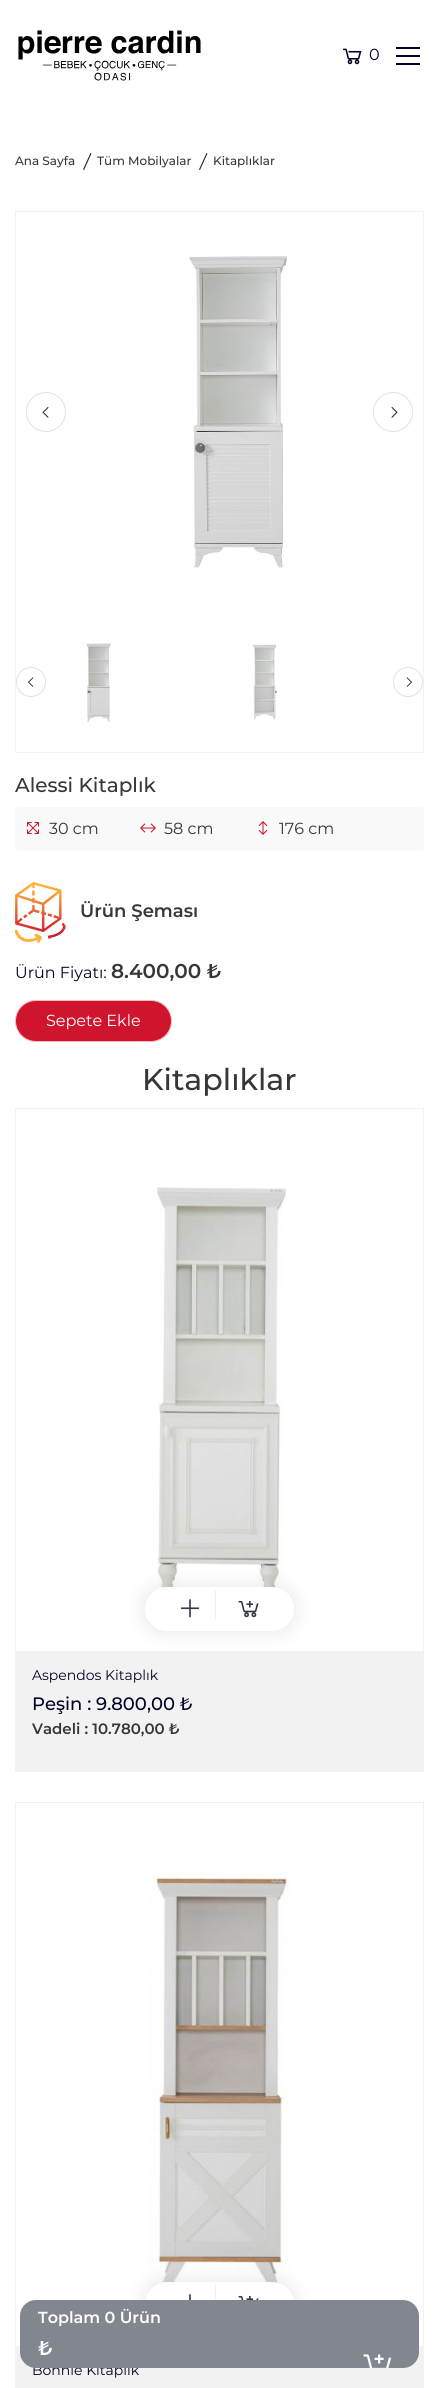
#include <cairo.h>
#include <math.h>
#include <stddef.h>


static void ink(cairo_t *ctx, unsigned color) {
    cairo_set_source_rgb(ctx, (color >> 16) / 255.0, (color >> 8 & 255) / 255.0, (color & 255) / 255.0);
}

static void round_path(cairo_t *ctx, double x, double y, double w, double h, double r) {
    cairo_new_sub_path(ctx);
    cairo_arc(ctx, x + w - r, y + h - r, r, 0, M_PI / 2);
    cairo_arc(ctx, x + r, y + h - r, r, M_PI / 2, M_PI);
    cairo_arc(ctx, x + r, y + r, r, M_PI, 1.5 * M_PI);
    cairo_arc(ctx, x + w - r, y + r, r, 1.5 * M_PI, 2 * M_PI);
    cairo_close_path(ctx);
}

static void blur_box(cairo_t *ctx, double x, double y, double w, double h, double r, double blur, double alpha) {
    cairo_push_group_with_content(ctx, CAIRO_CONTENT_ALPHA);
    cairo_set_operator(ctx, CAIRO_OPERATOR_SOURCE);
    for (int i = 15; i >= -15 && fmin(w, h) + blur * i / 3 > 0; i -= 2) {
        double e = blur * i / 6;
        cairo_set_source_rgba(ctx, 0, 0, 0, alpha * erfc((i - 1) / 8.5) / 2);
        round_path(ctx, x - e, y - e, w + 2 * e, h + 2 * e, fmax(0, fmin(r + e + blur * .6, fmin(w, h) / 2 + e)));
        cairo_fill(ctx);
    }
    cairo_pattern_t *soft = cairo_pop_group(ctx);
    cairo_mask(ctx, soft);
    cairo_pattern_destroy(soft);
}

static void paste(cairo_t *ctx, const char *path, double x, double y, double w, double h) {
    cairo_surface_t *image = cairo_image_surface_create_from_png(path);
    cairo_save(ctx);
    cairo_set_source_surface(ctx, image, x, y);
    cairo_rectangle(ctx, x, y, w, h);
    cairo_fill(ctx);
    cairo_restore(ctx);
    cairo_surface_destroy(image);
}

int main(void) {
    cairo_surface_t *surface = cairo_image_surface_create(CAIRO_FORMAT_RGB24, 439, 2388);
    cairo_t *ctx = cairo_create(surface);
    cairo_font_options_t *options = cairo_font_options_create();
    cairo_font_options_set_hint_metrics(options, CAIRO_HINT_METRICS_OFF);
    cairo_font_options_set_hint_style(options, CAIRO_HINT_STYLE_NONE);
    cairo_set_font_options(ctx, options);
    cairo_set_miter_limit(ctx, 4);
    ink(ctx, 0xFFFFFF);
    cairo_paint(ctx);
    paste(ctx, "media/1.png", 18, 30, 183, 51);
    paste(ctx, "media/2.png", 343, 48, 19, 17);
    cairo_select_font_face(ctx, "Montserrat", CAIRO_FONT_SLANT_NORMAL, CAIRO_FONT_WEIGHT_NORMAL);
    cairo_set_font_size(ctx, 16);
    ink(ctx, 0x010225);
    cairo_move_to(ctx, 369, 60);
    cairo_show_text(ctx, "0");
    paste(ctx, "media/3.png", 396, 47, 24, 18);
    cairo_select_font_face(ctx, "Montserrat Medium", CAIRO_FONT_SLANT_NORMAL, CAIRO_FONT_WEIGHT_NORMAL);
    cairo_set_font_size(ctx, 12);
    ink(ctx, 0x373737);
    cairo_move_to(ctx, 15, 165);
    cairo_show_text(ctx, "Ana Sayfa");
    ink(ctx, 0x1F2226);
    cairo_new_path(ctx);
    cairo_move_to(ctx, 91.5, 153.5);
    cairo_line_to(ctx, 84, 170);
    cairo_line_to(ctx, 83, 169.5);
    cairo_line_to(ctx, 90.5, 153);
    cairo_close_path(ctx);
    cairo_fill(ctx);
    ink(ctx, 0x373737);
    cairo_move_to(ctx, 97, 165);
    cairo_show_text(ctx, "Tüm Mobilyalar");
    ink(ctx, 0x1F2226);
    cairo_new_path(ctx);
    cairo_move_to(ctx, 207.5, 153.5);
    cairo_line_to(ctx, 200, 170);
    cairo_line_to(ctx, 199, 169.5);
    cairo_line_to(ctx, 206.5, 153);
    cairo_close_path(ctx);
    cairo_fill(ctx);
    ink(ctx, 0x373737);
    cairo_move_to(ctx, 213, 165);
    cairo_show_text(ctx, "Kitaplıklar");
    cairo_rectangle(ctx, 15.5, 211.5, 408, 541);
    ink(ctx, 0xF2F2F2);
    cairo_set_line_width(ctx, 1);
    cairo_stroke(ctx);
    paste(ctx, "media/4.png", 189, 256, 98, 312);
    cairo_arc(ctx, 46, 412, 19.5, 0, 2 * M_PI);
    ink(ctx, 0xE1E2E2);
    cairo_stroke(ctx);
    paste(ctx, "media/5.png", 42, 407, 7, 11);
    cairo_arc(ctx, 393, 412, 19.5, 0, 2 * M_PI);
    cairo_stroke(ctx);
    paste(ctx, "media/6.png", 391, 407, 7, 11);
    cairo_arc(ctx, 31, 682, 14.5, 0, 2 * M_PI);
    cairo_stroke(ctx);
    paste(ctx, "media/7.png", 28, 677, 6, 10);
    paste(ctx, "media/8.png", 86, 643, 25, 79);
    paste(ctx, "media/9.png", 252, 644, 25, 76);
    cairo_arc(ctx, 408, 682, 14.5, 0, 2 * M_PI);
    cairo_stroke(ctx);
    paste(ctx, "media/10.png", 406, 677, 6, 10);
    cairo_set_font_size(ctx, 20);
    ink(ctx, 0x373737);
    cairo_move_to(ctx, 15, 792);
    cairo_show_text(ctx, "Alessi Kitaplık");
    ink(ctx, 0xFAF9F9);
    round_path(ctx, 15, 807, 409, 44, 4);
    cairo_fill(ctx);
    paste(ctx, "media/11.png", 27, 822, 12, 12);
    cairo_select_font_face(ctx, "Montserrat", CAIRO_FONT_SLANT_NORMAL, CAIRO_FONT_WEIGHT_NORMAL);
    cairo_set_font_size(ctx, 16);
    ink(ctx, 0x373737);
    cairo_move_to(ctx, 49, 834);
    cairo_show_text(ctx, "30 cm");
    paste(ctx, "media/12.png", 140, 823, 16, 10);
    cairo_move_to(ctx, 164, 834);
    cairo_show_text(ctx, "58 cm");
    paste(ctx, "media/13.png", 258, 821, 10, 14);
    cairo_move_to(ctx, 279, 834);
    cairo_show_text(ctx, "176 cm");
    paste(ctx, "media/14.png", 15, 882, 51, 61);
    cairo_select_font_face(ctx, "Montserrat SemiBold", CAIRO_FONT_SLANT_NORMAL, CAIRO_FONT_WEIGHT_NORMAL);
    cairo_set_font_size(ctx, 18);
    cairo_move_to(ctx, 80, 917);
    cairo_show_text(ctx, "Ürün Şeması");
    cairo_select_font_face(ctx, "Montserrat", CAIRO_FONT_SLANT_NORMAL, CAIRO_FONT_WEIGHT_NORMAL);
    cairo_set_font_size(ctx, 16);
    ink(ctx, 0x010225);
    cairo_move_to(ctx, 15, 978);
    cairo_show_text(ctx, "Ürün Fiyatı:");
    cairo_select_font_face(ctx, "Montserrat SemiBold", CAIRO_FONT_SLANT_NORMAL, CAIRO_FONT_WEIGHT_NORMAL);
    cairo_set_font_size(ctx, 20);
    ink(ctx, 0x373737);
    cairo_move_to(ctx, 111, 978);
    cairo_show_text(ctx, "8.400,00 ₺");
    ink(ctx, 0xCF152D);
    round_path(ctx, 15.5, 1000.5, 156, 41, 20.5);
    cairo_fill_preserve(ctx);
    ink(ctx, 0xFFB9B9);
    cairo_stroke(ctx);
    cairo_select_font_face(ctx, "Montserrat", CAIRO_FONT_SLANT_NORMAL, CAIRO_FONT_WEIGHT_NORMAL);
    cairo_set_font_size(ctx, 16);
    ink(ctx, 0xFFFFFF);
    cairo_move_to(ctx, 46, 1026);
    cairo_show_text(ctx, "Sepete Ekle");
    cairo_select_font_face(ctx, "Montserrat Medium", CAIRO_FONT_SLANT_NORMAL, CAIRO_FONT_WEIGHT_NORMAL);
    cairo_set_font_size(ctx, 30);
    ink(ctx, 0x373737);
    cairo_move_to(ctx, 142, 1090);
    cairo_show_text(ctx, "Kitaplıklar");
    cairo_rectangle(ctx, 15.5, 1108.5, 408, 663);
    ink(ctx, 0xF2F2F2);
    cairo_stroke(ctx);
    paste(ctx, "media/15.png", 157, 1187, 132, 408);
    cairo_rectangle(ctx, 16, 1651, 407, 120);
    cairo_fill(ctx);
    ink(ctx, 0x000000);
    blur_box(ctx, 145, 1587, 149, 44, 22, 10, 0.1);
    ink(ctx, 0xFFFFFF);
    round_path(ctx, 145, 1587, 149, 44, 22);
    cairo_fill(ctx);
    paste(ctx, "media/16.png", 181, 1599, 18, 19);
    ink(ctx, 0xEFF0F1);
    cairo_rectangle(ctx, 215, 1590, 1, 30);
    cairo_fill(ctx);
    paste(ctx, "media/17.png", 238, 1600, 21, 18);
    cairo_select_font_face(ctx, "Montserrat", CAIRO_FONT_SLANT_NORMAL, CAIRO_FONT_WEIGHT_NORMAL);
    cairo_set_font_size(ctx, 14);
    ink(ctx, 0x010225);
    cairo_move_to(ctx, 32, 1680);
    cairo_show_text(ctx, "Aspendos Kitaplık");
    cairo_select_font_face(ctx, "Montserrat Medium", CAIRO_FONT_SLANT_NORMAL, CAIRO_FONT_WEIGHT_NORMAL);
    cairo_set_font_size(ctx, 18);
    cairo_move_to(ctx, 32, 1710);
    cairo_show_text(ctx, "Peşin : 9.800,00 ₺");
    cairo_select_font_face(ctx, "Montserrat SemiBold", CAIRO_FONT_SLANT_NORMAL, CAIRO_FONT_WEIGHT_NORMAL);
    cairo_set_font_size(ctx, 15);
    ink(ctx, 0x373737);
    cairo_move_to(ctx, 32, 1734);
    cairo_show_text(ctx, "Vadeli : 10.780,00 ₺");
    cairo_rectangle(ctx, 15.5, 1802.5, 408, 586);
    ink(ctx, 0xF2F2F2);
    cairo_stroke(ctx);
    paste(ctx, "media/18.png", 147, 1877, 143, 418);
    cairo_rectangle(ctx, 16, 2346, 407, 42);
    cairo_fill(ctx);
    ink(ctx, 0x000000);
    blur_box(ctx, 145, 2282, 149, 44, 22, 10, 0.1);
    ink(ctx, 0xFFFFFF);
    round_path(ctx, 145, 2282, 149, 44, 22);
    cairo_fill(ctx);
    paste(ctx, "media/19.png", 189, 2294, 2, 6);
    ink(ctx, 0xEFF0F1);
    cairo_rectangle(ctx, 215, 2285, 1, 15);
    cairo_fill(ctx);
    paste(ctx, "media/20.png", 238, 2295, 21, 5);
    cairo_select_font_face(ctx, "Montserrat", CAIRO_FONT_SLANT_NORMAL, CAIRO_FONT_WEIGHT_NORMAL);
    cairo_set_font_size(ctx, 14);
    ink(ctx, 0x010225);
    cairo_move_to(ctx, 32, 2375);
    cairo_show_text(ctx, "Bonnie Kitaplık");
    ink(ctx, 0x81868F);
    round_path(ctx, 20, 2300, 399, 68, 16);
    cairo_fill(ctx);
    cairo_select_font_face(ctx, "Montserrat SemiBold", CAIRO_FONT_SLANT_NORMAL, CAIRO_FONT_WEIGHT_NORMAL);
    cairo_set_font_size(ctx, 16);
    ink(ctx, 0xFFFFFF);
    cairo_move_to(ctx, 38, 2323);
    cairo_show_text(ctx, "Toplam 0 Ürün");
    cairo_set_font_size(ctx, 20);
    cairo_move_to(ctx, 38, 2355);
    cairo_show_text(ctx, "₺");
    paste(ctx, "media/21.png", 363, 2354, 29, 14);
    cairo_surface_write_to_png(surface, "image.png");
    cairo_font_options_destroy(options);
    cairo_destroy(ctx);
    cairo_surface_destroy(surface);
    return 0;
}
